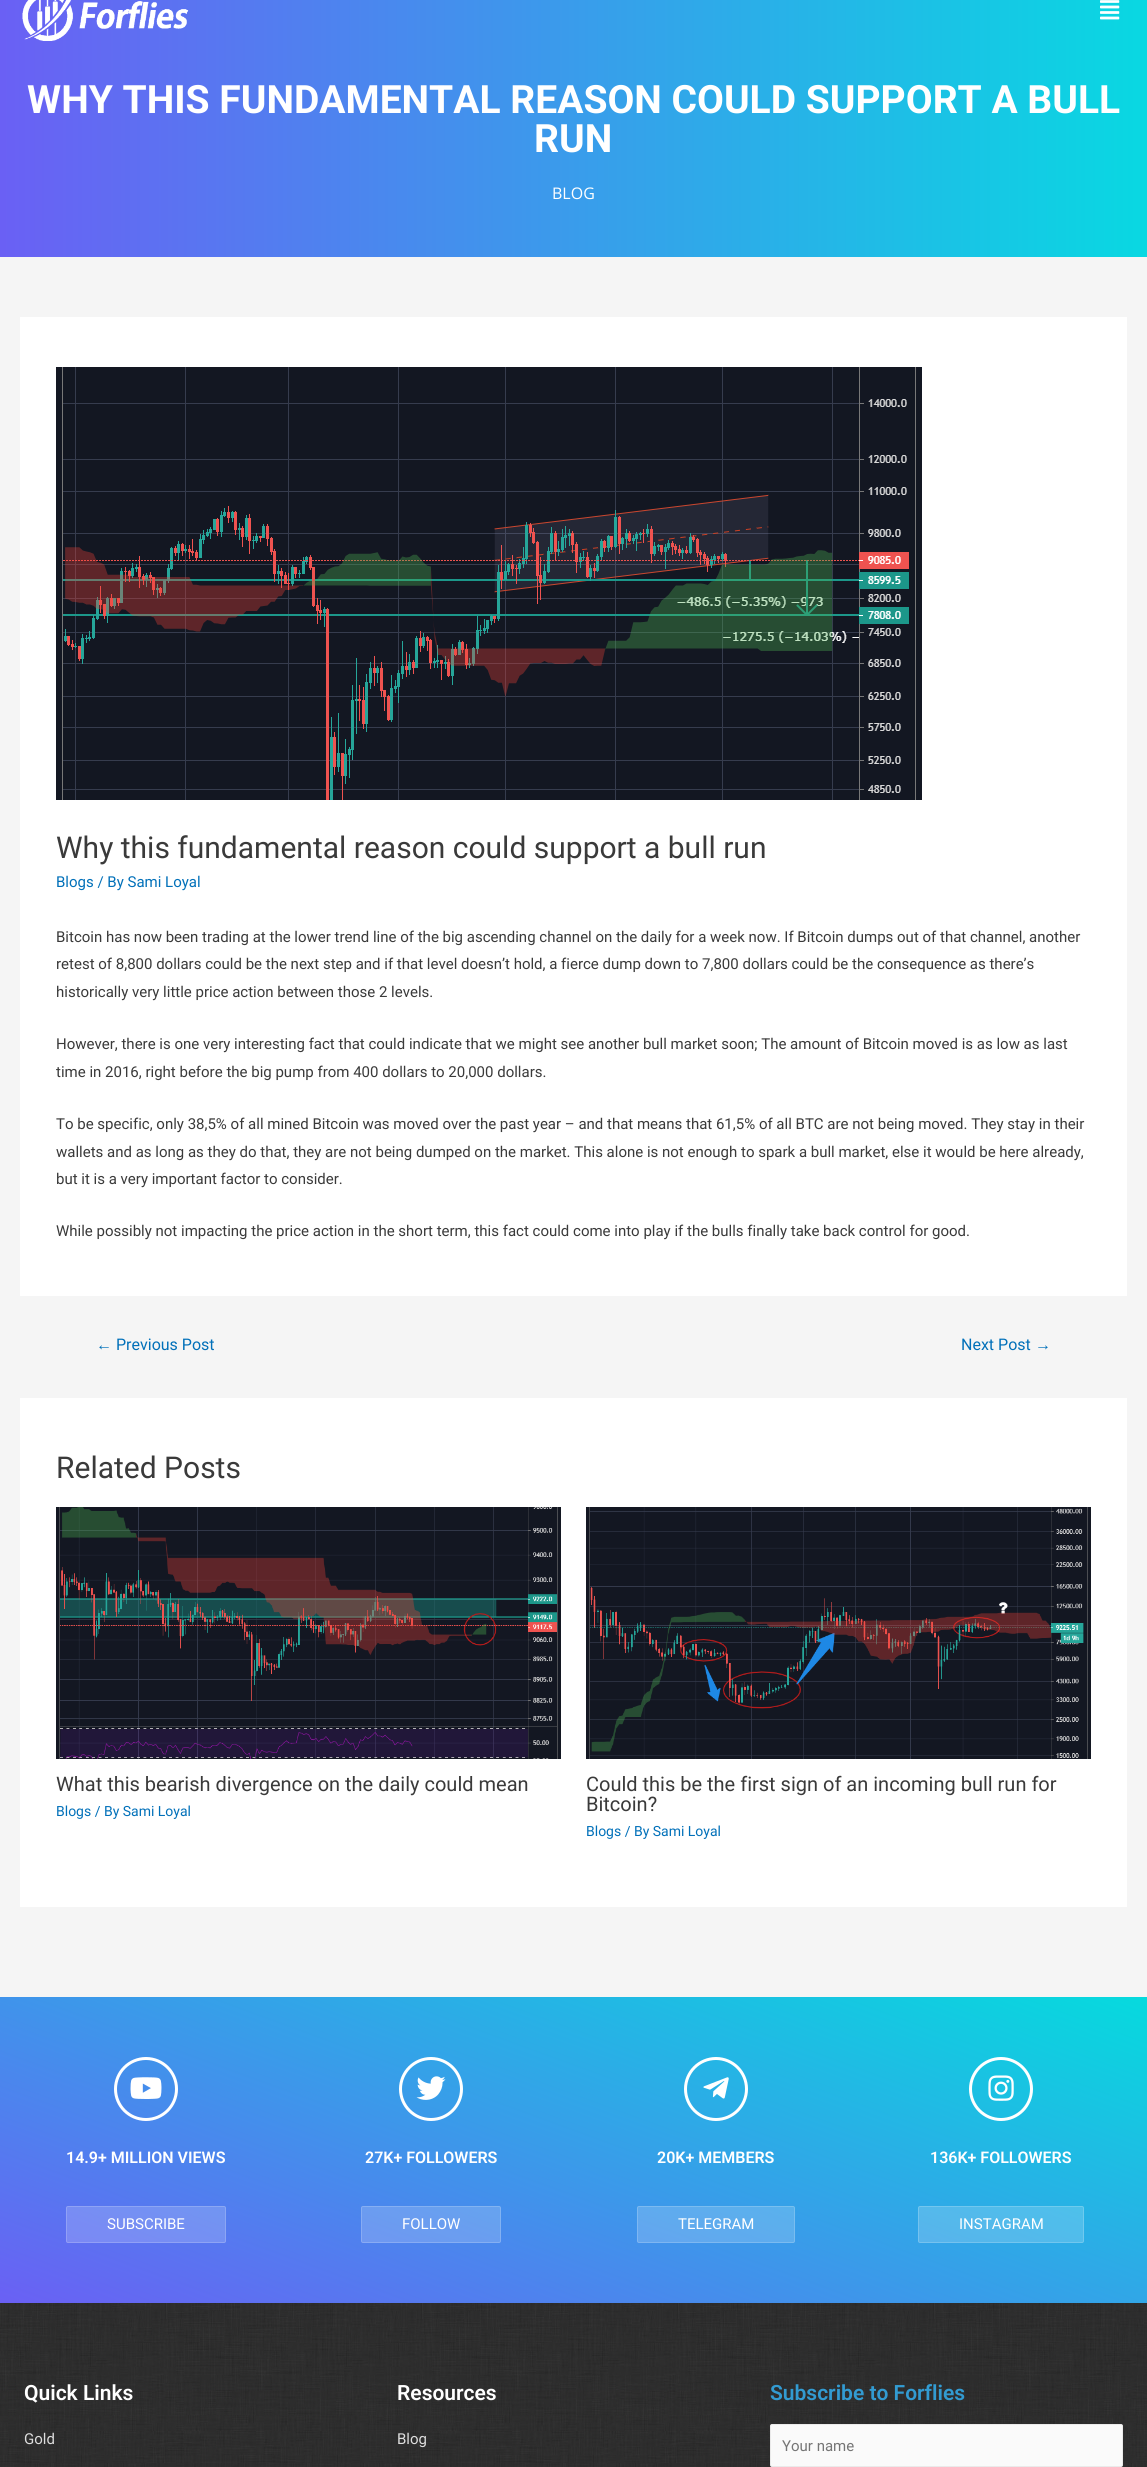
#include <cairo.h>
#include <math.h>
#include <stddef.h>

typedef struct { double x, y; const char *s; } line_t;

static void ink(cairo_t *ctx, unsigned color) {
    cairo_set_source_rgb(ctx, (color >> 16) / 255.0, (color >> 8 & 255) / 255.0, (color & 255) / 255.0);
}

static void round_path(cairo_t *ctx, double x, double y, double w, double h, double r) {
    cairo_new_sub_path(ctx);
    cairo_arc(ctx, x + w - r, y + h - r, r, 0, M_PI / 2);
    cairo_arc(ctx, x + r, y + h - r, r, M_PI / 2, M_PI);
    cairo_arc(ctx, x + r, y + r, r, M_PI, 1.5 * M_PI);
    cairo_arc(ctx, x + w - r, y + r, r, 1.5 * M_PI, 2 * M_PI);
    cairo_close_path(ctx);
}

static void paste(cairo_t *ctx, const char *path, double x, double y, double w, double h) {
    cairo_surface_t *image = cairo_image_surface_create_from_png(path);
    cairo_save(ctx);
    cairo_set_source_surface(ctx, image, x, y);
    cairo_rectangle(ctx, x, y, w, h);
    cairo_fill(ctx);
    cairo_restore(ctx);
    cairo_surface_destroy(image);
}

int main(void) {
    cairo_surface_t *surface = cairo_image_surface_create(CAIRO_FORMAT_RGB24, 1147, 2467);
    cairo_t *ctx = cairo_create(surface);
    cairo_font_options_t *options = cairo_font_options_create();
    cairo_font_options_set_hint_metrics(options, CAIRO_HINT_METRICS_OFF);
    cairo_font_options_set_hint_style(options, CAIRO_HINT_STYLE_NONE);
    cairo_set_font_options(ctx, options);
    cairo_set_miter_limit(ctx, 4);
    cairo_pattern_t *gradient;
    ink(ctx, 0xF5F5F5);
    cairo_paint(ctx);
    gradient = cairo_pattern_create_linear(1147, 114, 0, 114);
    cairo_pattern_add_color_stop_rgba(gradient, 0, 0.035, 0.847, 0.886, 1);
    cairo_pattern_add_color_stop_rgba(gradient, 1, 0.416, 0.376, 0.957, 1);
    cairo_set_source(ctx, gradient);
    cairo_pattern_destroy(gradient);
    cairo_rectangle(ctx, 0, 0, 1147, 257);
    cairo_fill(ctx);
    paste(ctx, "media/1.png", 22, 0, 167, 41);
    paste(ctx, "media/2.png", 1100, 0, 20, 20);
    cairo_select_font_face(ctx, "Roboto", CAIRO_FONT_SLANT_NORMAL, CAIRO_FONT_WEIGHT_BOLD);
    cairo_set_font_size(ctx, 39);
    ink(ctx, 0xFFFFFF);
    cairo_move_to(ctx, 27, 113);
    cairo_show_text(ctx, "WHY THIS FUNDAMENTAL REASON COULD SUPPORT A BULL");
    cairo_move_to(ctx, 534, 152);
    cairo_show_text(ctx, "RUN");
    cairo_select_font_face(ctx, "Open Sans", CAIRO_FONT_SLANT_NORMAL, CAIRO_FONT_WEIGHT_NORMAL);
    cairo_set_font_size(ctx, 16);
    cairo_move_to(ctx, 552, 199);
    cairo_show_text(ctx, "BLOG");
    cairo_rectangle(ctx, 20, 317, 1107, 979);
    cairo_fill(ctx);
    paste(ctx, "media/3.png", 56, 367, 866, 433);
    cairo_select_font_face(ctx, "Roboto", CAIRO_FONT_SLANT_NORMAL, CAIRO_FONT_WEIGHT_NORMAL);
    cairo_set_font_size(ctx, 30);
    ink(ctx, 0x3A3A3A);
    cairo_move_to(ctx, 56, 858);
    cairo_show_text(ctx, "Why this fundamental reason could support a bull run");
    cairo_set_font_size(ctx, 15);
    ink(ctx, 0x0170B9);
    cairo_move_to(ctx, 56, 887);
    cairo_show_text(ctx, "Blogs / By Sami Loyal");
    ink(ctx, 0x3A3A3A);
    {
        static const line_t items[] = {
            {56, 942, "Bitcoin has now been trading at the lower trend line of the big ascending channel on the daily for a week now. If Bitcoin dumps out of that channel, another"},
            {56, 969, "retest of 8,800 dollars could be the next step and if that level doesn’t hold, a fierce dump down to 7,800 dollars could be the consequence as there’s"},
            {56, 997, "historically very little price action between those 2 levels."},
            {56, 1049, "However, there is one very interesting fact that could indicate that we might see another bull market soon; The amount of Bitcoin moved is as low as last"},
            {56, 1077, "time in 2016, right before the big pump from 400 dollars to 20,000 dollars."},
            {56, 1129, "To be specific, only 38,5% of all mined Bitcoin was moved over the past year – and that means that 61,5% of all BTC are not being moved. They stay in their"},
            {56, 1157, "wallets and as long as they do that, they are not being dumped on the market. This alone is not enough to spark a bull market, else it would be here already,"},
            {56, 1184, "but it is a very important factor to consider."},
            {56, 1236, "While possibly not impacting the price action in the short term, this fact could come into play if the bulls finally take back control for good."},
        };
        for (size_t i = 0; i < sizeof items / sizeof *items; i++) {
            cairo_move_to(ctx, items[i].x, items[i].y);
            cairo_show_text(ctx, items[i].s);
        }
    }
    cairo_select_font_face(ctx, "Liberation Sans", CAIRO_FONT_SLANT_NORMAL, CAIRO_FONT_WEIGHT_NORMAL);
    cairo_set_font_size(ctx, 16);
    ink(ctx, 0x0170B9);
    cairo_move_to(ctx, 96, 1350);
    cairo_show_text(ctx, "←");
    cairo_select_font_face(ctx, "Roboto", CAIRO_FONT_SLANT_NORMAL, CAIRO_FONT_WEIGHT_NORMAL);
    cairo_move_to(ctx, 116, 1350);
    cairo_show_text(ctx, "Previous Post");
    cairo_move_to(ctx, 961, 1350);
    cairo_show_text(ctx, "Next Post");
    cairo_select_font_face(ctx, "Liberation Sans", CAIRO_FONT_SLANT_NORMAL, CAIRO_FONT_WEIGHT_NORMAL);
    cairo_move_to(ctx, 1035, 1350);
    cairo_show_text(ctx, "→");
    ink(ctx, 0xFFFFFF);
    cairo_rectangle(ctx, 20, 1398, 1107, 509);
    cairo_fill(ctx);
    cairo_select_font_face(ctx, "Roboto", CAIRO_FONT_SLANT_NORMAL, CAIRO_FONT_WEIGHT_NORMAL);
    cairo_set_font_size(ctx, 30);
    ink(ctx, 0x3A3A3A);
    cairo_move_to(ctx, 56, 1478);
    cairo_show_text(ctx, "Related Posts");
    paste(ctx, "media/4.png", 56, 1507, 505, 252);
    cairo_set_font_size(ctx, 20);
    cairo_move_to(ctx, 56, 1791);
    cairo_show_text(ctx, "What this bearish divergence on the daily could mean");
    cairo_set_font_size(ctx, 14);
    ink(ctx, 0x0170B9);
    cairo_move_to(ctx, 56, 1816);
    cairo_show_text(ctx, "Blogs / By Sami Loyal");
    paste(ctx, "media/5.png", 586, 1507, 505, 252);
    cairo_set_font_size(ctx, 20);
    ink(ctx, 0x3A3A3A);
    cairo_move_to(ctx, 586, 1791);
    cairo_show_text(ctx, "Could this be the first sign of an incoming bull run for");
    cairo_move_to(ctx, 586, 1811);
    cairo_show_text(ctx, "Bitcoin?");
    cairo_set_font_size(ctx, 14);
    ink(ctx, 0x0170B9);
    cairo_move_to(ctx, 586, 1836);
    cairo_show_text(ctx, "Blogs / By Sami Loyal");
    gradient = cairo_pattern_create_linear(690, 1831, 457, 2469);
    cairo_pattern_add_color_stop_rgba(gradient, 0, 0.024, 0.855, 0.871, 1);
    cairo_pattern_add_color_stop_rgba(gradient, 1, 0.416, 0.376, 0.957, 1);
    cairo_set_source(ctx, gradient);
    cairo_pattern_destroy(gradient);
    cairo_rectangle(ctx, 0, 1997, 1147, 306);
    cairo_fill(ctx);
    cairo_arc(ctx, 146, 2089, 30.5, 0, 2 * M_PI);
    ink(ctx, 0xFFFFFF);
    cairo_set_line_width(ctx, 3);
    cairo_stroke(ctx);
    paste(ctx, "media/6.png", 130, 2077, 32, 22);
    cairo_select_font_face(ctx, "Roboto SemiBold", CAIRO_FONT_SLANT_NORMAL, CAIRO_FONT_WEIGHT_NORMAL);
    cairo_set_font_size(ctx, 16);
    cairo_move_to(ctx, 66, 2163);
    cairo_show_text(ctx, "14.9+ MILLION VIEWS");
    cairo_set_source_rgba(ctx, 1, 1, 1, 0.18);
    round_path(ctx, 66, 2206, 160, 37, 2);
    cairo_fill(ctx);
    round_path(ctx, 66.5, 2206.5, 159, 36, 1.5);
    cairo_set_line_width(ctx, 1);
    cairo_stroke(ctx);
    cairo_select_font_face(ctx, "Roboto", CAIRO_FONT_SLANT_NORMAL, CAIRO_FONT_WEIGHT_NORMAL);
    cairo_set_font_size(ctx, 15);
    ink(ctx, 0xFFFFFF);
    cairo_move_to(ctx, 107, 2229);
    cairo_show_text(ctx, "SUBSCRIBE");
    cairo_new_path(ctx);
    cairo_arc(ctx, 431, 2089, 30.5, 0, 2 * M_PI);
    cairo_set_line_width(ctx, 3);
    cairo_stroke(ctx);
    paste(ctx, "media/7.png", 416, 2076, 30, 24);
    cairo_select_font_face(ctx, "Roboto SemiBold", CAIRO_FONT_SLANT_NORMAL, CAIRO_FONT_WEIGHT_NORMAL);
    cairo_set_font_size(ctx, 16);
    cairo_move_to(ctx, 365, 2163);
    cairo_show_text(ctx, "27K+ FOLLOWERS");
    cairo_set_source_rgba(ctx, 1, 1, 1, 0.18);
    round_path(ctx, 361, 2206, 140, 37, 2);
    cairo_fill(ctx);
    round_path(ctx, 361.5, 2206.5, 139, 36, 1.5);
    cairo_set_line_width(ctx, 1);
    cairo_stroke(ctx);
    cairo_select_font_face(ctx, "Roboto", CAIRO_FONT_SLANT_NORMAL, CAIRO_FONT_WEIGHT_NORMAL);
    cairo_set_font_size(ctx, 15);
    ink(ctx, 0xFFFFFF);
    cairo_move_to(ctx, 402, 2229);
    cairo_show_text(ctx, "FOLLOW");
    cairo_new_path(ctx);
    cairo_arc(ctx, 716, 2089, 30.5, 0, 2 * M_PI);
    cairo_set_line_width(ctx, 3);
    cairo_stroke(ctx);
    paste(ctx, "media/8.png", 703, 2077, 26, 22);
    cairo_select_font_face(ctx, "Roboto SemiBold", CAIRO_FONT_SLANT_NORMAL, CAIRO_FONT_WEIGHT_NORMAL);
    cairo_set_font_size(ctx, 16);
    cairo_move_to(ctx, 657, 2163);
    cairo_show_text(ctx, "20K+ MEMBERS");
    cairo_set_source_rgba(ctx, 1, 1, 1, 0.18);
    round_path(ctx, 637, 2206, 158, 37, 2);
    cairo_fill(ctx);
    round_path(ctx, 637.5, 2206.5, 157, 36, 1.5);
    cairo_set_line_width(ctx, 1);
    cairo_stroke(ctx);
    cairo_select_font_face(ctx, "Roboto", CAIRO_FONT_SLANT_NORMAL, CAIRO_FONT_WEIGHT_NORMAL);
    cairo_set_font_size(ctx, 15);
    ink(ctx, 0xFFFFFF);
    cairo_move_to(ctx, 678, 2229);
    cairo_show_text(ctx, "TELEGRAM");
    cairo_new_path(ctx);
    cairo_arc(ctx, 1001, 2089, 30.5, 0, 2 * M_PI);
    cairo_set_line_width(ctx, 3);
    cairo_stroke(ctx);
    paste(ctx, "media/9.png", 988, 2075, 26, 26);
    cairo_select_font_face(ctx, "Roboto SemiBold", CAIRO_FONT_SLANT_NORMAL, CAIRO_FONT_WEIGHT_NORMAL);
    cairo_set_font_size(ctx, 16);
    cairo_move_to(ctx, 930, 2163);
    cairo_show_text(ctx, "136K+ FOLLOWERS");
    cairo_set_source_rgba(ctx, 1, 1, 1, 0.18);
    round_path(ctx, 918, 2206, 166, 37, 2);
    cairo_fill(ctx);
    round_path(ctx, 918.5, 2206.5, 165, 36, 1.5);
    cairo_set_line_width(ctx, 1);
    cairo_stroke(ctx);
    cairo_select_font_face(ctx, "Roboto", CAIRO_FONT_SLANT_NORMAL, CAIRO_FONT_WEIGHT_NORMAL);
    cairo_set_font_size(ctx, 15);
    ink(ctx, 0xFFFFFF);
    cairo_move_to(ctx, 959, 2229);
    cairo_show_text(ctx, "INSTAGRAM");
    paste(ctx, "media/10.png", 0, 2303, 1147, 164);
    cairo_select_font_face(ctx, "Roboto SemiBold", CAIRO_FONT_SLANT_NORMAL, CAIRO_FONT_WEIGHT_NORMAL);
    cairo_set_font_size(ctx, 21);
    cairo_move_to(ctx, 24, 2400);
    cairo_show_text(ctx, "Quick Links");
    cairo_select_font_face(ctx, "Roboto", CAIRO_FONT_SLANT_NORMAL, CAIRO_FONT_WEIGHT_NORMAL);
    cairo_set_font_size(ctx, 15);
    ink(ctx, 0xDDDDDD);
    cairo_move_to(ctx, 24, 2444);
    cairo_show_text(ctx, "Gold");
    cairo_select_font_face(ctx, "Roboto SemiBold", CAIRO_FONT_SLANT_NORMAL, CAIRO_FONT_WEIGHT_NORMAL);
    cairo_set_font_size(ctx, 21);
    ink(ctx, 0xFFFFFF);
    cairo_move_to(ctx, 397, 2400);
    cairo_show_text(ctx, "Resources");
    cairo_select_font_face(ctx, "Roboto", CAIRO_FONT_SLANT_NORMAL, CAIRO_FONT_WEIGHT_NORMAL);
    cairo_set_font_size(ctx, 15);
    ink(ctx, 0xDDDDDD);
    cairo_move_to(ctx, 397, 2444);
    cairo_show_text(ctx, "Blog");
    cairo_select_font_face(ctx, "Roboto SemiBold", CAIRO_FONT_SLANT_NORMAL, CAIRO_FONT_WEIGHT_NORMAL);
    cairo_set_font_size(ctx, 21);
    ink(ctx, 0x329BD2);
    cairo_move_to(ctx, 770, 2400);
    cairo_show_text(ctx, "Subscribe to Forflies");
    ink(ctx, 0xFAFAFA);
    round_path(ctx, 770.5, 2424.5, 352, 42, 1.5);
    cairo_fill_preserve(ctx);
    ink(ctx, 0xEAEAEA);
    cairo_stroke(ctx);
    cairo_select_font_face(ctx, "Roboto", CAIRO_FONT_SLANT_NORMAL, CAIRO_FONT_WEIGHT_NORMAL);
    cairo_set_font_size(ctx, 15);
    ink(ctx, 0x757575);
    cairo_move_to(ctx, 782, 2451);
    cairo_show_text(ctx, "Your name");
    cairo_surface_write_to_png(surface, "image.png");
    cairo_font_options_destroy(options);
    cairo_destroy(ctx);
    cairo_surface_destroy(surface);
    return 0;
}
